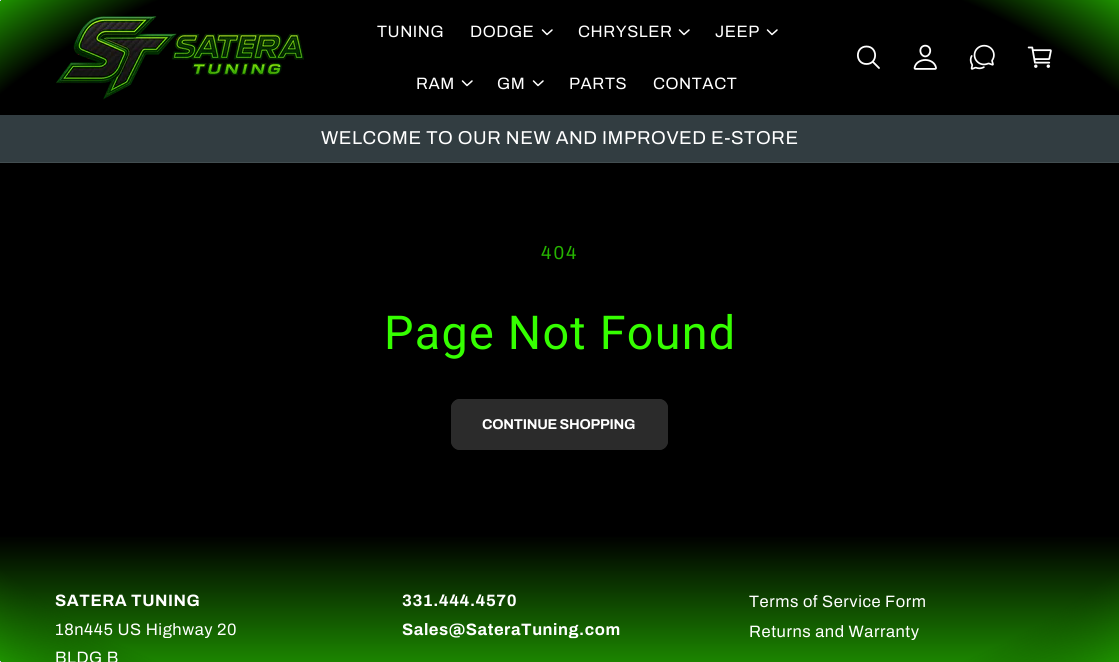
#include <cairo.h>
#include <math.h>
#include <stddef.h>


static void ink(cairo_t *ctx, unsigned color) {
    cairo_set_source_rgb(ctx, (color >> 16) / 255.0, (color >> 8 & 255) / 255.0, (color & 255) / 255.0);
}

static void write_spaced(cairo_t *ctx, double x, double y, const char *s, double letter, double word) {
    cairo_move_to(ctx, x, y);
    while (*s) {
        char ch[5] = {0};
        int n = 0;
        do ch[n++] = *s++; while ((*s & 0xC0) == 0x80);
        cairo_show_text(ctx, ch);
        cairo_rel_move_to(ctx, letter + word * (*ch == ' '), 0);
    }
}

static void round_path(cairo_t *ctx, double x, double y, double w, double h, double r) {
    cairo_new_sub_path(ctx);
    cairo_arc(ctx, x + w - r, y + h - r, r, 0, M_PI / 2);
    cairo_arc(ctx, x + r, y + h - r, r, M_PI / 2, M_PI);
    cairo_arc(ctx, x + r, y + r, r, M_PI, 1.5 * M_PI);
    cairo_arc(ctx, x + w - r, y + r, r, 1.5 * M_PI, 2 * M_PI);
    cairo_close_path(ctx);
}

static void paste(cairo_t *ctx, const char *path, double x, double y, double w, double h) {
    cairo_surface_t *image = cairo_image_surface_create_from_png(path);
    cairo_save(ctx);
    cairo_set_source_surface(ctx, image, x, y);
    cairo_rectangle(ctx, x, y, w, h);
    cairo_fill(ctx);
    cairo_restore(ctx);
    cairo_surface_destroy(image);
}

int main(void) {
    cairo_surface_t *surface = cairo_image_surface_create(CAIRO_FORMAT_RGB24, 1119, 662);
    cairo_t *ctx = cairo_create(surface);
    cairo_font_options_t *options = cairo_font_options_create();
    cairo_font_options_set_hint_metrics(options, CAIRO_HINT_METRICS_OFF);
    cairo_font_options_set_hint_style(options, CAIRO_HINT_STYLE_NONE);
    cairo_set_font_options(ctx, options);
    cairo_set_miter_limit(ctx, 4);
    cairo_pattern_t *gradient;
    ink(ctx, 0xFFFFFF);
    cairo_paint(ctx);
    gradient = cairo_pattern_create_linear(560, 0, 560, 662);
    cairo_pattern_add_color_stop_rgba(gradient, 0.81, 0, 0, 0, 1);
    cairo_pattern_add_color_stop_rgba(gradient, 1, 0.208, 1, 0, 1);
    cairo_set_source(ctx, gradient);
    cairo_pattern_destroy(gradient);
    cairo_rectangle(ctx, 0, 163, 1119, 499);
    cairo_fill(ctx);
    gradient = cairo_pattern_create_radial(0, 0, 0, 0, 0, 1);
    cairo_pattern_set_matrix(gradient, &(cairo_matrix_t){1.0 / 791, 0, 0, 1.0 / 468, -1.0 * 560 / 791, -1.0 * 331 / 468});
    cairo_pattern_add_color_stop_rgba(gradient, 0.87, 0, 0, 0, 1);
    cairo_pattern_add_color_stop_rgba(gradient, 1, 0.118, 0.569, 0, 1);
    cairo_pattern_add_color_stop_rgba(gradient, 1, 0.843, 0.8, 0.98, 1);
    cairo_set_source(ctx, gradient);
    cairo_pattern_destroy(gradient);
    cairo_rectangle(ctx, 0, 0, 1119, 115);
    cairo_fill(ctx);
    paste(ctx, "media/1.png", 56, 16, 248, 84);
    cairo_select_font_face(ctx, "Archivo", CAIRO_FONT_SLANT_NORMAL, CAIRO_FONT_WEIGHT_NORMAL);
    cairo_set_font_size(ctx, 16.5);
    ink(ctx, 0xFFFFFF);
    write_spaced(ctx, 377, 37, "TUNING", 0.55, 0);
    write_spaced(ctx, 470, 37, "DODGE", 0.55, 0);
    cairo_new_path(ctx);
    cairo_move_to(ctx, 542.5, 30);
    cairo_line_to(ctx, 547, 34.5);
    cairo_line_to(ctx, 552, 30);
    cairo_set_line_width(ctx, 1.5);
    cairo_set_line_cap(ctx, CAIRO_LINE_CAP_ROUND);
    cairo_set_line_join(ctx, CAIRO_LINE_JOIN_ROUND);
    cairo_stroke(ctx);
    write_spaced(ctx, 578, 37, "CHRYSLER", 0.55, 0);
    cairo_new_path(ctx);
    cairo_move_to(ctx, 679.5, 30);
    cairo_line_to(ctx, 684, 34.5);
    cairo_line_to(ctx, 689, 30);
    cairo_stroke(ctx);
    write_spaced(ctx, 715, 37, "JEEP", 0.55, 0);
    cairo_new_path(ctx);
    cairo_move_to(ctx, 767.5, 30);
    cairo_line_to(ctx, 772, 34.5);
    cairo_line_to(ctx, 777, 30);
    cairo_stroke(ctx);
    write_spaced(ctx, 416, 89, "RAM", 0.55, 0);
    cairo_new_path(ctx);
    cairo_move_to(ctx, 462.5, 81);
    cairo_line_to(ctx, 467, 85.5);
    cairo_line_to(ctx, 472, 81);
    cairo_stroke(ctx);
    write_spaced(ctx, 497, 89, "GM", 0.55, 0);
    cairo_new_path(ctx);
    cairo_move_to(ctx, 533.5, 81);
    cairo_line_to(ctx, 538, 85.5);
    cairo_line_to(ctx, 543, 81);
    cairo_stroke(ctx);
    write_spaced(ctx, 569, 89, "PARTS", 0.55, 0);
    write_spaced(ctx, 653, 89, "CONTACT", 0.55, 0);
    cairo_new_path(ctx);
    cairo_move_to(ctx, 866.5, 46.5);
    cairo_curve_to(ctx, 855, 46.5, 855, 64, 866.5, 64);
    cairo_curve_to(ctx, 878, 64, 878, 46.5, 866.5, 46.5);
    cairo_close_path(ctx);
    cairo_set_line_width(ctx, 1.8);
    cairo_set_line_cap(ctx, CAIRO_LINE_CAP_BUTT);
    cairo_set_line_join(ctx, CAIRO_LINE_JOIN_MITER);
    cairo_stroke(ctx);
    cairo_new_path(ctx);
    cairo_move_to(ctx, 873, 62);
    cairo_line_to(ctx, 879, 68);
    cairo_set_line_cap(ctx, CAIRO_LINE_CAP_ROUND);
    cairo_stroke(ctx);
    paste(ctx, "media/2.png", 913, 44, 24, 26);
    paste(ctx, "media/3.png", 969, 44, 26, 26);
    paste(ctx, "media/4.png", 1027, 46, 25, 22);
    ink(ctx, 0x323D41);
    cairo_rectangle(ctx, 0, 115, 1119, 47);
    cairo_fill(ctx);
    ink(ctx, 0x424D50);
    cairo_rectangle(ctx, 0, 162, 1119, 1);
    cairo_fill(ctx);
    cairo_set_font_size(ctx, 18.7);
    ink(ctx, 0xFFFFFF);
    write_spaced(ctx, 321, 144, "WELCOME TO OUR NEW AND IMPROVED E-STORE", 0.55, 0);
    ink(ctx, 0x25B300);
    write_spaced(ctx, 541, 259, "404", 2, 0);
    cairo_select_font_face(ctx, "Roboto", CAIRO_FONT_SLANT_NORMAL, CAIRO_FONT_WEIGHT_NORMAL);
    cairo_set_font_size(ctx, 46.75);
    ink(ctx, 0x35FF00);
    write_spaced(ctx, 384, 349, "Page Not Found", 1.25, 0);
    ink(ctx, 0x2B2B2B);
    round_path(ctx, 451, 399, 217, 51, 9);
    cairo_fill(ctx);
    round_path(ctx, 451.5, 399.5, 216, 50, 8.5);
    cairo_set_line_width(ctx, 1);
    cairo_set_line_cap(ctx, CAIRO_LINE_CAP_BUTT);
    cairo_stroke(ctx);
    cairo_select_font_face(ctx, "Archivo", CAIRO_FONT_SLANT_NORMAL, CAIRO_FONT_WEIGHT_BOLD);
    cairo_set_font_size(ctx, 14.25);
    ink(ctx, 0xFFFFFF);
    write_spaced(ctx, 482, 429, "CONTINUE SHOPPING", -0.25, 0);
    gradient = cairo_pattern_create_radial(0, 0, 0, 0, 0, 1);
    cairo_pattern_set_matrix(gradient, &(cairo_matrix_t){1.0 / 791, 0, 0, 1.0 / 468, -1.0 * 560 / 791, -1.0 * 331 / 468});
    cairo_pattern_add_color_stop_rgba(gradient, 0.87, 0, 0, 0, 0.48);
    cairo_pattern_add_color_stop_rgba(gradient, 1, 0.118, 0.569, 0, 1);
    cairo_pattern_add_color_stop_rgba(gradient, 1, 0.843, 0.8, 0.98, 1);
    cairo_set_source(ctx, gradient);
    cairo_pattern_destroy(gradient);
    cairo_rectangle(ctx, 0, 539, 1119, 123);
    cairo_fill(ctx);
    cairo_set_font_size(ctx, 16.5);
    ink(ctx, 0xFFFFFF);
    write_spaced(ctx, 55, 606, "SATERA TUNING", 0.55, 0);
    cairo_select_font_face(ctx, "Archivo", CAIRO_FONT_SLANT_NORMAL, CAIRO_FONT_WEIGHT_NORMAL);
    write_spaced(ctx, 55, 635, "18n445 US Highway 20", 0.55, 0);
    write_spaced(ctx, 55, 663, "BLDG B", 0.55, 0);
    cairo_select_font_face(ctx, "Archivo", CAIRO_FONT_SLANT_NORMAL, CAIRO_FONT_WEIGHT_BOLD);
    write_spaced(ctx, 402, 606, "331.444.4570", 0.55, 0);
    write_spaced(ctx, 402, 635, "Sales@SateraTuning.com", 0.55, 0);
    cairo_select_font_face(ctx, "Archivo", CAIRO_FONT_SLANT_NORMAL, CAIRO_FONT_WEIGHT_NORMAL);
    write_spaced(ctx, 749, 607, "Terms of Service Form", 0.55, 0);
    write_spaced(ctx, 749, 637, "Returns and Warranty", 0.55, 0);
    cairo_surface_write_to_png(surface, "image.png");
    cairo_font_options_destroy(options);
    cairo_destroy(ctx);
    cairo_surface_destroy(surface);
    return 0;
}
